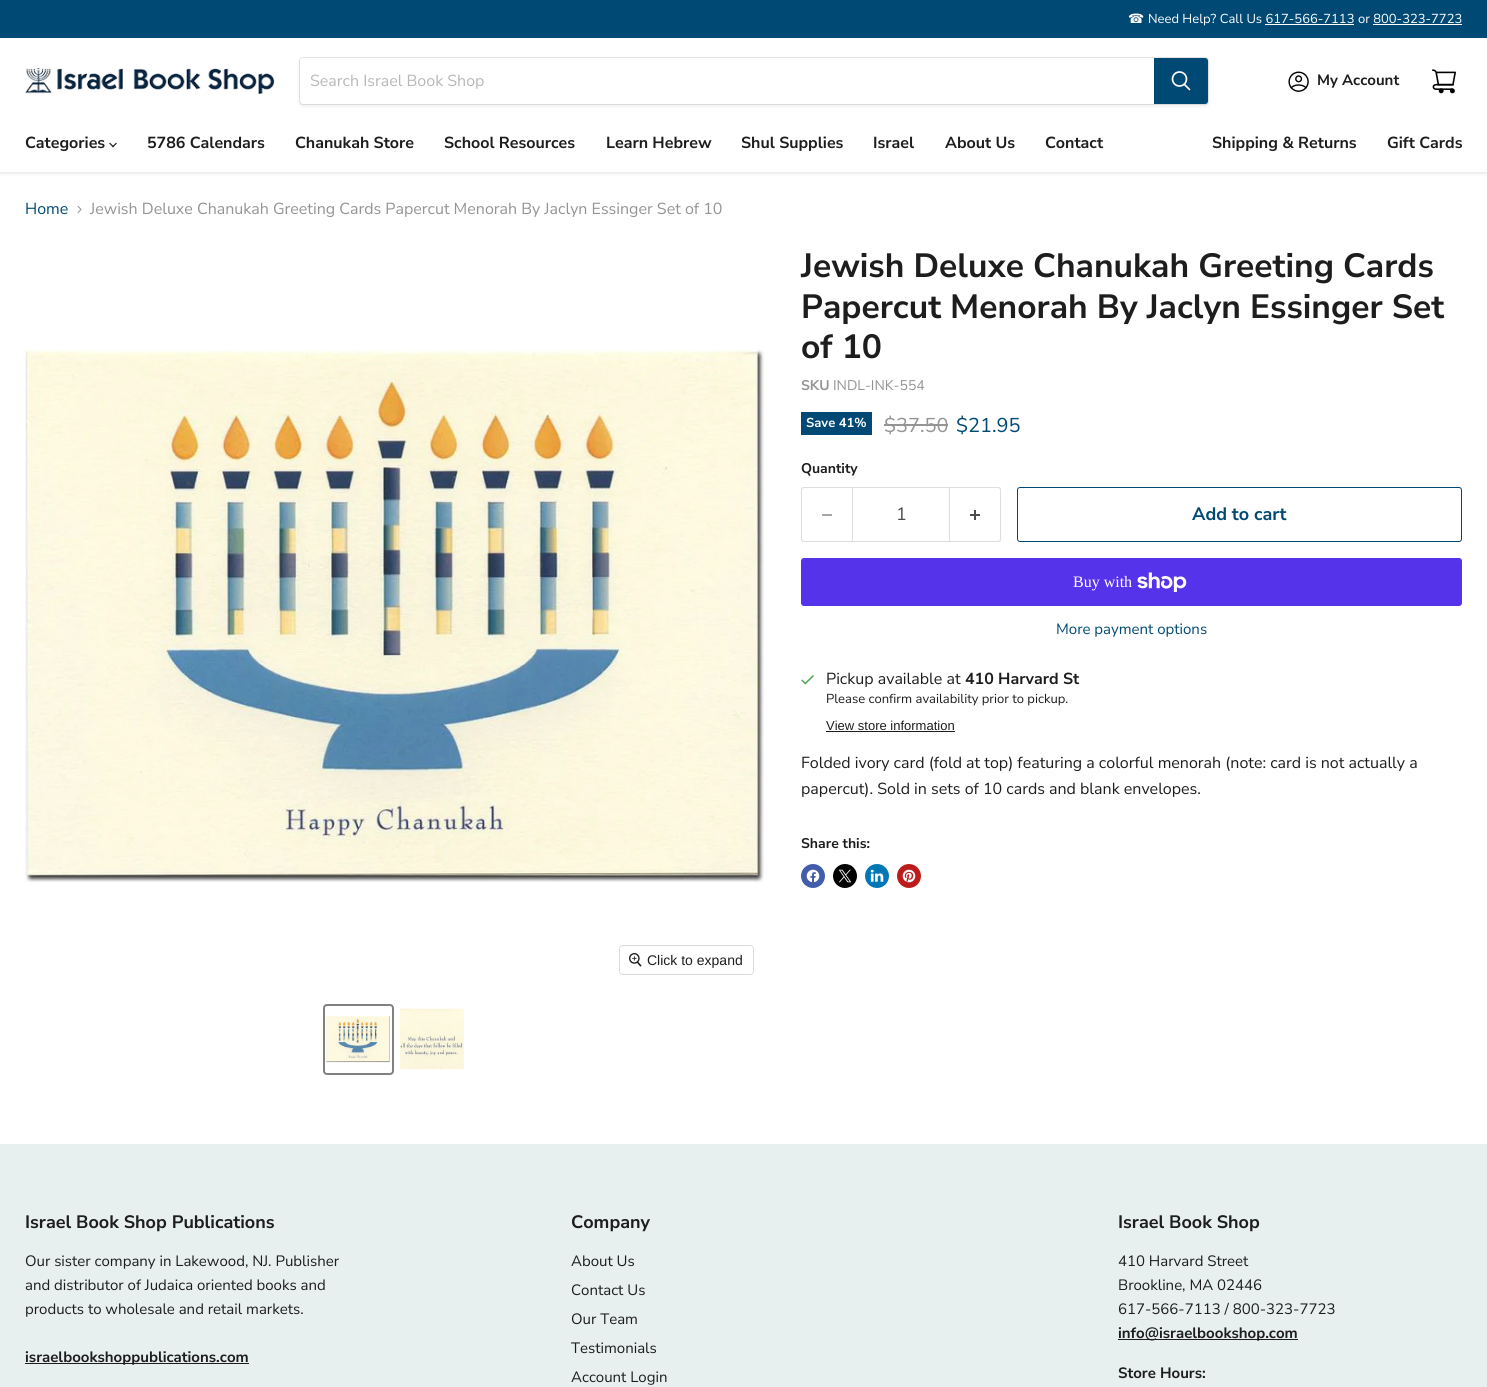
#include <cairo.h>
#include <math.h>
#include <stddef.h>

typedef struct { double x, y; const char *s; } line_t;

static void ink(cairo_t *ctx, unsigned color) {
    cairo_set_source_rgb(ctx, (color >> 16) / 255.0, (color >> 8 & 255) / 255.0, (color & 255) / 255.0);
}

static void round_path(cairo_t *ctx, double x, double y, double w, double h, double r) {
    cairo_new_sub_path(ctx);
    cairo_arc(ctx, x + w - r, y + h - r, r, 0, M_PI / 2);
    cairo_arc(ctx, x + r, y + h - r, r, M_PI / 2, M_PI);
    cairo_arc(ctx, x + r, y + r, r, M_PI, 1.5 * M_PI);
    cairo_arc(ctx, x + w - r, y + r, r, 1.5 * M_PI, 2 * M_PI);
    cairo_close_path(ctx);
}

static void blur_box(cairo_t *ctx, double x, double y, double w, double h, double r, double blur, double alpha) {
    cairo_push_group_with_content(ctx, CAIRO_CONTENT_ALPHA);
    cairo_set_operator(ctx, CAIRO_OPERATOR_SOURCE);
    for (int i = 15; i >= -15 && fmin(w, h) + blur * i / 3 > 0; i -= 2) {
        double e = blur * i / 6;
        cairo_set_source_rgba(ctx, 0, 0, 0, alpha * erfc((i - 1) / 8.5) / 2);
        round_path(ctx, x - e, y - e, w + 2 * e, h + 2 * e, fmax(0, fmin(r + e + blur * .6, fmin(w, h) / 2 + e)));
        cairo_fill(ctx);
    }
    cairo_pattern_t *soft = cairo_pop_group(ctx);
    cairo_mask(ctx, soft);
    cairo_pattern_destroy(soft);
}

static void paste(cairo_t *ctx, const char *path, double x, double y, double w, double h) {
    cairo_surface_t *image = cairo_image_surface_create_from_png(path);
    cairo_save(ctx);
    cairo_set_source_surface(ctx, image, x, y);
    cairo_rectangle(ctx, x, y, w, h);
    cairo_fill(ctx);
    cairo_restore(ctx);
    cairo_surface_destroy(image);
}

int main(void) {
    cairo_surface_t *surface = cairo_image_surface_create(CAIRO_FORMAT_RGB24, 1487, 1387);
    cairo_t *ctx = cairo_create(surface);
    cairo_font_options_t *options = cairo_font_options_create();
    cairo_font_options_set_hint_metrics(options, CAIRO_HINT_METRICS_OFF);
    cairo_font_options_set_hint_style(options, CAIRO_HINT_STYLE_NONE);
    cairo_set_font_options(ctx, options);
    cairo_set_miter_limit(ctx, 4);
    ink(ctx, 0xFFFFFF);
    cairo_paint(ctx);
    cairo_save(ctx);
    cairo_rectangle(ctx, 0, 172, 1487, 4);
    cairo_clip(ctx);
    ink(ctx, 0x808080);
    blur_box(ctx, 0, 39, 1487, 134, 0, 2, 0.25);
    cairo_restore(ctx);
    ink(ctx, 0x004974);
    cairo_rectangle(ctx, 0, 0, 1487, 38);
    cairo_fill(ctx);
    cairo_select_font_face(ctx, "DejaVu Sans", CAIRO_FONT_SLANT_NORMAL, CAIRO_FONT_WEIGHT_NORMAL);
    cairo_set_font_size(ctx, 13);
    ink(ctx, 0xFFFFFF);
    cairo_move_to(ctx, 1128, 23);
    cairo_show_text(ctx, "☎");
    cairo_select_font_face(ctx, "Nunito Sans", CAIRO_FONT_SLANT_NORMAL, CAIRO_FONT_WEIGHT_NORMAL);
    cairo_move_to(ctx, 1148, 23);
    cairo_show_text(ctx, "Need Help? Call Us 617-566-7113");
    cairo_move_to(ctx, 1358, 23);
    cairo_show_text(ctx, "or 800-323-7723");
    cairo_rectangle(ctx, 1265, 24, 89, 1);
    cairo_fill(ctx);
    cairo_rectangle(ctx, 1373, 24, 89, 1);
    cairo_fill(ctx);
    paste(ctx, "media/1.png", 25, 68, 250, 26);
    ink(ctx, 0x808080);
    blur_box(ctx, 299, 59, 910, 48, 4, 1.5, 0.11);
    round_path(ctx, 299.5, 57.5, 909, 47, 3.5);
    cairo_set_source_rgba(ctx, 0.502, 0.502, 0.502, 0.2);
    cairo_set_line_width(ctx, 1);
    cairo_stroke(ctx);
    ink(ctx, 0xFFFFFF);
    cairo_new_path(ctx);
    cairo_move_to(ctx, 303, 58);
    cairo_line_to(ctx, 1154, 58);
    cairo_line_to(ctx, 1154, 104);
    cairo_line_to(ctx, 303, 104);
    cairo_curve_to(ctx, 301.5, 104, 300, 102.5, 300, 101);
    cairo_line_to(ctx, 300, 61);
    cairo_curve_to(ctx, 300, 59.5, 301.5, 58, 303, 58);
    cairo_close_path(ctx);
    cairo_fill(ctx);
    cairo_set_font_size(ctx, 16);
    ink(ctx, 0xB8B8B8);
    cairo_move_to(ctx, 310, 86);
    cairo_show_text(ctx, "Search Israel Book Shop");
    ink(ctx, 0x004974);
    cairo_new_path(ctx);
    cairo_move_to(ctx, 1154.5, 58.5);
    cairo_line_to(ctx, 1205, 58.5);
    cairo_curve_to(ctx, 1206.5, 58.5, 1207.5, 59.5, 1207.5, 61);
    cairo_line_to(ctx, 1207.5, 101);
    cairo_curve_to(ctx, 1207.5, 102.5, 1206.5, 103.5, 1205, 103.5);
    cairo_line_to(ctx, 1154.5, 103.5);
    cairo_close_path(ctx);
    cairo_fill_preserve(ctx);
    cairo_stroke(ctx);
    cairo_new_path(ctx);
    cairo_move_to(ctx, 1189.5, 89.5);
    cairo_line_to(ctx, 1184.5, 84.5);
    ink(ctx, 0xFFFFFF);
    cairo_set_line_width(ctx, 1.7);
    cairo_set_line_cap(ctx, CAIRO_LINE_CAP_ROUND);
    cairo_stroke(ctx);
    cairo_arc(ctx, 1179.5, 79, 7, 0, 2 * M_PI);
    cairo_set_line_cap(ctx, CAIRO_LINE_CAP_BUTT);
    cairo_stroke(ctx);
    paste(ctx, "media/2.png", 1288, 71, 21, 21);
    cairo_select_font_face(ctx, "Nunito Sans", CAIRO_FONT_SLANT_NORMAL, CAIRO_FONT_WEIGHT_BOLD);
    cairo_set_font_size(ctx, 15);
    ink(ctx, 0x1D1D1D);
    cairo_move_to(ctx, 1317, 85);
    cairo_show_text(ctx, "My Account");
    paste(ctx, "media/3.png", 1432, 69, 24, 25);
    cairo_set_font_size(ctx, 16);
    cairo_move_to(ctx, 25, 148);
    cairo_show_text(ctx, "Categories");
    paste(ctx, "media/4.png", 109, 142, 8, 6);
    {
        static const line_t items[] = {
            {147, 148, "5786 Calendars"},
            {295, 148, "Chanukah Store"},
            {444, 148, "School Resources"},
            {606, 148, "Learn Hebrew"},
            {741, 148, "Shul Supplies"},
            {873, 148, "Israel"},
            {945, 148, "About Us"},
            {1045, 148, "Contact"},
            {1212, 148, "Shipping & Returns"},
            {1387, 148, "Gift Cards"},
        };
        for (size_t i = 0; i < sizeof items / sizeof *items; i++) {
            cairo_move_to(ctx, items[i].x, items[i].y);
            cairo_show_text(ctx, items[i].s);
        }
    }
    cairo_select_font_face(ctx, "Nunito Sans", CAIRO_FONT_SLANT_NORMAL, CAIRO_FONT_WEIGHT_NORMAL);
    ink(ctx, 0x004974);
    cairo_move_to(ctx, 25, 214);
    cairo_show_text(ctx, "Home");
    paste(ctx, "media/5.png", 77, 206, 5, 7);
    ink(ctx, 0x949494);
    cairo_move_to(ctx, 90, 214);
    cairo_show_text(ctx, "Jewish Deluxe Chanukah Greeting Cards Papercut Menorah By Jaclyn Essinger Set of 10");
    cairo_select_font_face(ctx, "Nunito Sans", CAIRO_FONT_SLANT_NORMAL, CAIRO_FONT_WEIGHT_BOLD);
    cairo_set_font_size(ctx, 33.6);
    ink(ctx, 0x1D1D1D);
    {
        static const line_t items[] = {
            {801, 277, "Jewish Deluxe Chanukah Greeting Cards"},
            {801, 318, "Papercut Menorah By Jaclyn Essinger Set"},
            {801, 358, "of 10"},
        };
        for (size_t i = 0; i < sizeof items / sizeof *items; i++) {
            cairo_move_to(ctx, items[i].x, items[i].y);
            cairo_show_text(ctx, items[i].s);
        }
    }
    cairo_set_font_size(ctx, 14);
    ink(ctx, 0x949494);
    cairo_move_to(ctx, 801, 390);
    cairo_show_text(ctx, "SKU");
    cairo_select_font_face(ctx, "Nunito Sans", CAIRO_FONT_SLANT_NORMAL, CAIRO_FONT_WEIGHT_NORMAL);
    cairo_move_to(ctx, 833, 390);
    cairo_show_text(ctx, "INDL-INK-554");
    ink(ctx, 0x004974);
    cairo_rectangle(ctx, 801, 412, 71, 23);
    cairo_fill(ctx);
    cairo_select_font_face(ctx, "Nunito Sans", CAIRO_FONT_SLANT_NORMAL, CAIRO_FONT_WEIGHT_BOLD);
    cairo_set_font_size(ctx, 13);
    ink(ctx, 0xFFFFFF);
    cairo_move_to(ctx, 806, 427);
    cairo_show_text(ctx, "Save 41%");
    cairo_select_font_face(ctx, "Nunito Sans", CAIRO_FONT_SLANT_NORMAL, CAIRO_FONT_WEIGHT_NORMAL);
    cairo_set_font_size(ctx, 20);
    ink(ctx, 0x949494);
    cairo_move_to(ctx, 884, 432);
    cairo_show_text(ctx, "$37.50");
    cairo_rectangle(ctx, 884, 424, 64, 2);
    cairo_fill(ctx);
    ink(ctx, 0x004974);
    cairo_move_to(ctx, 956, 432);
    cairo_show_text(ctx, "$21.95");
    cairo_select_font_face(ctx, "Nunito Sans", CAIRO_FONT_SLANT_NORMAL, CAIRO_FONT_WEIGHT_BOLD);
    cairo_set_font_size(ctx, 14);
    ink(ctx, 0x1D1D1D);
    cairo_move_to(ctx, 801, 473);
    cairo_show_text(ctx, "Quantity");
    ink(ctx, 0xDDDDDD);
    cairo_set_fill_rule(ctx, CAIRO_FILL_RULE_EVEN_ODD);
    cairo_new_path(ctx);
    cairo_move_to(ctx, 804, 487);
    cairo_line_to(ctx, 852, 487);
    cairo_line_to(ctx, 852, 542);
    cairo_line_to(ctx, 804, 542);
    cairo_curve_to(ctx, 802, 542, 801, 541, 801, 539);
    cairo_line_to(ctx, 801, 490);
    cairo_curve_to(ctx, 801, 488, 802, 487, 804, 487);
    cairo_close_path(ctx);
    cairo_move_to(ctx, 804, 488);
    cairo_line_to(ctx, 852, 488);
    cairo_line_to(ctx, 852, 541);
    cairo_line_to(ctx, 812, 541);
    cairo_curve_to(ctx, 808, 541, 802, 542, 802, 539);
    cairo_line_to(ctx, 802, 489);
    cairo_close_path(ctx);
    cairo_fill(ctx);
    ink(ctx, 0xA6A6A6);
    cairo_rectangle(ctx, 822, 514, 10, 2);
    cairo_fill(ctx);
    cairo_rectangle(ctx, 852.5, 487.5, 97, 54);
    ink(ctx, 0xDDDDDD);
    cairo_set_line_width(ctx, 1);
    cairo_stroke(ctx);
    cairo_select_font_face(ctx, "Nunito Sans", CAIRO_FONT_SLANT_NORMAL, CAIRO_FONT_WEIGHT_NORMAL);
    cairo_set_font_size(ctx, 18);
    ink(ctx, 0x4D4D4D);
    cairo_move_to(ctx, 896, 520);
    cairo_show_text(ctx, "1");
    ink(ctx, 0xDDDDDD);
    cairo_new_path(ctx);
    cairo_move_to(ctx, 950, 487);
    cairo_line_to(ctx, 998, 487);
    cairo_curve_to(ctx, 1000, 487, 1001, 488, 1001, 490);
    cairo_line_to(ctx, 1001, 539);
    cairo_curve_to(ctx, 1001, 541, 1000, 542, 998, 542);
    cairo_line_to(ctx, 950, 542);
    cairo_close_path(ctx);
    cairo_move_to(ctx, 950, 488);
    cairo_line_to(ctx, 998, 488);
    cairo_curve_to(ctx, 999, 488, 1000, 489, 1000, 490);
    cairo_line_to(ctx, 1000, 539);
    cairo_curve_to(ctx, 1000, 540, 999, 541, 998, 541);
    cairo_line_to(ctx, 950, 541);
    cairo_close_path(ctx);
    cairo_fill(ctx);
    paste(ctx, "media/6.png", 970, 510, 10, 10);
    round_path(ctx, 1017.5, 487.5, 444, 54, 2.5);
    ink(ctx, 0x004974);
    cairo_stroke(ctx);
    cairo_select_font_face(ctx, "Nunito Sans", CAIRO_FONT_SLANT_NORMAL, CAIRO_FONT_WEIGHT_BOLD);
    cairo_move_to(ctx, 1192, 520);
    cairo_show_text(ctx, "Add to cart");
    ink(ctx, 0x5433EB);
    round_path(ctx, 801, 558, 661, 48, 3);
    cairo_fill(ctx);
    cairo_select_font_face(ctx, "Liberation Serif", CAIRO_FONT_SLANT_NORMAL, CAIRO_FONT_WEIGHT_NORMAL);
    cairo_set_font_size(ctx, 16);
    ink(ctx, 0xFFFFFF);
    cairo_move_to(ctx, 1073, 587);
    cairo_show_text(ctx, "Buy with");
    paste(ctx, "media/7.png", 1137, 572, 50, 20);
    cairo_select_font_face(ctx, "Nunito Sans", CAIRO_FONT_SLANT_NORMAL, CAIRO_FONT_WEIGHT_NORMAL);
    cairo_set_font_size(ctx, 15);
    ink(ctx, 0x004974);
    cairo_move_to(ctx, 1056, 634);
    cairo_show_text(ctx, "More payment options");
    paste(ctx, "media/8.png", 801, 675, 13, 10);
    cairo_set_font_size(ctx, 16);
    ink(ctx, 0x1D1D1D);
    cairo_move_to(ctx, 826, 684);
    cairo_show_text(ctx, "Pickup available at");
    cairo_select_font_face(ctx, "Nunito Sans", CAIRO_FONT_SLANT_NORMAL, CAIRO_FONT_WEIGHT_BOLD);
    cairo_move_to(ctx, 965, 684);
    cairo_show_text(ctx, "410 Harvard St");
    cairo_select_font_face(ctx, "Nunito Sans", CAIRO_FONT_SLANT_NORMAL, CAIRO_FONT_WEIGHT_NORMAL);
    cairo_set_font_size(ctx, 13);
    cairo_move_to(ctx, 826, 703);
    cairo_show_text(ctx, "Please confirm availability prior to pickup.");
    cairo_select_font_face(ctx, "Liberation Sans", CAIRO_FONT_SLANT_NORMAL, CAIRO_FONT_WEIGHT_NORMAL);
    cairo_move_to(ctx, 826, 730);
    cairo_show_text(ctx, "View store information");
    cairo_rectangle(ctx, 826, 731, 129, 1);
    cairo_fill(ctx);
    cairo_select_font_face(ctx, "Nunito Sans", CAIRO_FONT_SLANT_NORMAL, CAIRO_FONT_WEIGHT_NORMAL);
    cairo_set_font_size(ctx, 16);
    cairo_move_to(ctx, 801, 768);
    cairo_show_text(ctx, "Folded ivory card (fold at top) featuring a colorful menorah (note: card is not actually a");
    cairo_move_to(ctx, 801, 794);
    cairo_show_text(ctx, "papercut). Sold in sets of 10 cards and blank envelopes.");
    cairo_select_font_face(ctx, "Nunito Sans", CAIRO_FONT_SLANT_NORMAL, CAIRO_FONT_WEIGHT_BOLD);
    cairo_set_font_size(ctx, 14);
    cairo_move_to(ctx, 801, 848);
    cairo_show_text(ctx, "Share this:");
    ink(ctx, 0x425DAB);
    cairo_new_path(ctx);
    cairo_arc(ctx, 813, 876, 12, 0, 2 * M_PI);
    cairo_fill(ctx);
    paste(ctx, "media/9.png", 806, 869, 14, 14);
    ink(ctx, 0x000000);
    cairo_arc(ctx, 845, 876, 12, 0, 2 * M_PI);
    cairo_fill(ctx);
    paste(ctx, "media/10.png", 838, 869, 14, 14);
    ink(ctx, 0x0077B5);
    cairo_arc(ctx, 877, 876, 12, 0, 2 * M_PI);
    cairo_fill(ctx);
    paste(ctx, "media/11.png", 870, 869, 14, 13);
    ink(ctx, 0xBD1C1C);
    cairo_arc(ctx, 909, 876, 12, 0, 2 * M_PI);
    cairo_fill(ctx);
    paste(ctx, "media/12.png", 902, 869, 14, 14);
    paste(ctx, "media/13.png", 25, 349, 740, 534);
    round_path(ctx, 619.5, 945.5, 134, 29, 3.5);
    ink(ctx, 0xD9D9D9);
    cairo_stroke(ctx);
    cairo_set_source_rgba(ctx, 1, 1, 1, 0.9);
    round_path(ctx, 620, 946, 133, 28, 3);
    cairo_fill(ctx);
    paste(ctx, "media/14.png", 629, 953, 13, 14);
    cairo_select_font_face(ctx, "Liberation Sans", CAIRO_FONT_SLANT_NORMAL, CAIRO_FONT_WEIGHT_NORMAL);
    ink(ctx, 0x1D1D1D);
    cairo_move_to(ctx, 647, 965);
    cairo_show_text(ctx, "Click to expand");
    round_path(ctx, 324, 1005, 69, 69, 3);
    ink(ctx, 0x818181);
    cairo_set_line_width(ctx, 2);
    cairo_stroke(ctx);
    paste(ctx, "media/15.png", 326, 1016, 64, 47);
    paste(ctx, "media/16.png", 400, 1008, 64, 62);
    ink(ctx, 0xE8EFEF);
    cairo_rectangle(ctx, 0, 1144, 1487, 243);
    cairo_fill(ctx);
    cairo_select_font_face(ctx, "Nunito Sans", CAIRO_FONT_SLANT_NORMAL, CAIRO_FONT_WEIGHT_BOLD);
    cairo_set_font_size(ctx, 18);
    ink(ctx, 0x1D1D1D);
    cairo_move_to(ctx, 25, 1228);
    cairo_show_text(ctx, "Israel Book Shop Publications");
    cairo_select_font_face(ctx, "Nunito Sans", CAIRO_FONT_SLANT_NORMAL, CAIRO_FONT_WEIGHT_NORMAL);
    cairo_set_font_size(ctx, 15);
    {
        static const line_t items[] = {
            {25, 1266, "Our sister company in Lakewood, NJ. Publisher"},
            {25, 1290, "and distributor of Judaica oriented books and"},
            {25, 1314, "products to wholesale and retail markets."},
        };
        for (size_t i = 0; i < sizeof items / sizeof *items; i++) {
            cairo_move_to(ctx, items[i].x, items[i].y);
            cairo_show_text(ctx, items[i].s);
        }
    }
    cairo_rectangle(ctx, 25, 1363, 224, 1);
    cairo_fill(ctx);
    cairo_select_font_face(ctx, "Nunito Sans", CAIRO_FONT_SLANT_NORMAL, CAIRO_FONT_WEIGHT_BOLD);
    cairo_move_to(ctx, 25, 1362);
    cairo_show_text(ctx, "israelbookshoppublications.com");
    cairo_set_font_size(ctx, 18);
    cairo_move_to(ctx, 571, 1228);
    cairo_show_text(ctx, "Company");
    cairo_select_font_face(ctx, "Nunito Sans", CAIRO_FONT_SLANT_NORMAL, CAIRO_FONT_WEIGHT_NORMAL);
    cairo_set_font_size(ctx, 15);
    {
        static const line_t items[] = {
            {571, 1266, "About Us"},
            {571, 1295, "Contact Us"},
            {571, 1324, "Our Team"},
            {571, 1353, "Testimonials"},
            {571, 1382, "Account Login"},
        };
        for (size_t i = 0; i < sizeof items / sizeof *items; i++) {
            cairo_move_to(ctx, items[i].x, items[i].y);
            cairo_show_text(ctx, items[i].s);
        }
    }
    cairo_select_font_face(ctx, "Nunito Sans", CAIRO_FONT_SLANT_NORMAL, CAIRO_FONT_WEIGHT_BOLD);
    cairo_set_font_size(ctx, 18);
    cairo_move_to(ctx, 1118, 1228);
    cairo_show_text(ctx, "Israel Book Shop");
    cairo_select_font_face(ctx, "Nunito Sans", CAIRO_FONT_SLANT_NORMAL, CAIRO_FONT_WEIGHT_NORMAL);
    cairo_set_font_size(ctx, 15);
    {
        static const line_t items[] = {
            {1118, 1266, "410 Harvard Street"},
            {1118, 1290, "Brookline, MA 02446"},
            {1118, 1314, "617-566-7113 / 800-323-7723"},
        };
        for (size_t i = 0; i < sizeof items / sizeof *items; i++) {
            cairo_move_to(ctx, items[i].x, items[i].y);
            cairo_show_text(ctx, items[i].s);
        }
    }
    cairo_rectangle(ctx, 1118, 1339, 180, 1);
    cairo_fill(ctx);
    cairo_select_font_face(ctx, "Nunito Sans", CAIRO_FONT_SLANT_NORMAL, CAIRO_FONT_WEIGHT_BOLD);
    cairo_move_to(ctx, 1118, 1338);
    cairo_show_text(ctx, "info@israelbookshop.com");
    cairo_move_to(ctx, 1118, 1378);
    cairo_show_text(ctx, "Store Hours:");
    cairo_surface_write_to_png(surface, "image.png");
    cairo_font_options_destroy(options);
    cairo_destroy(ctx);
    cairo_surface_destroy(surface);
    return 0;
}
